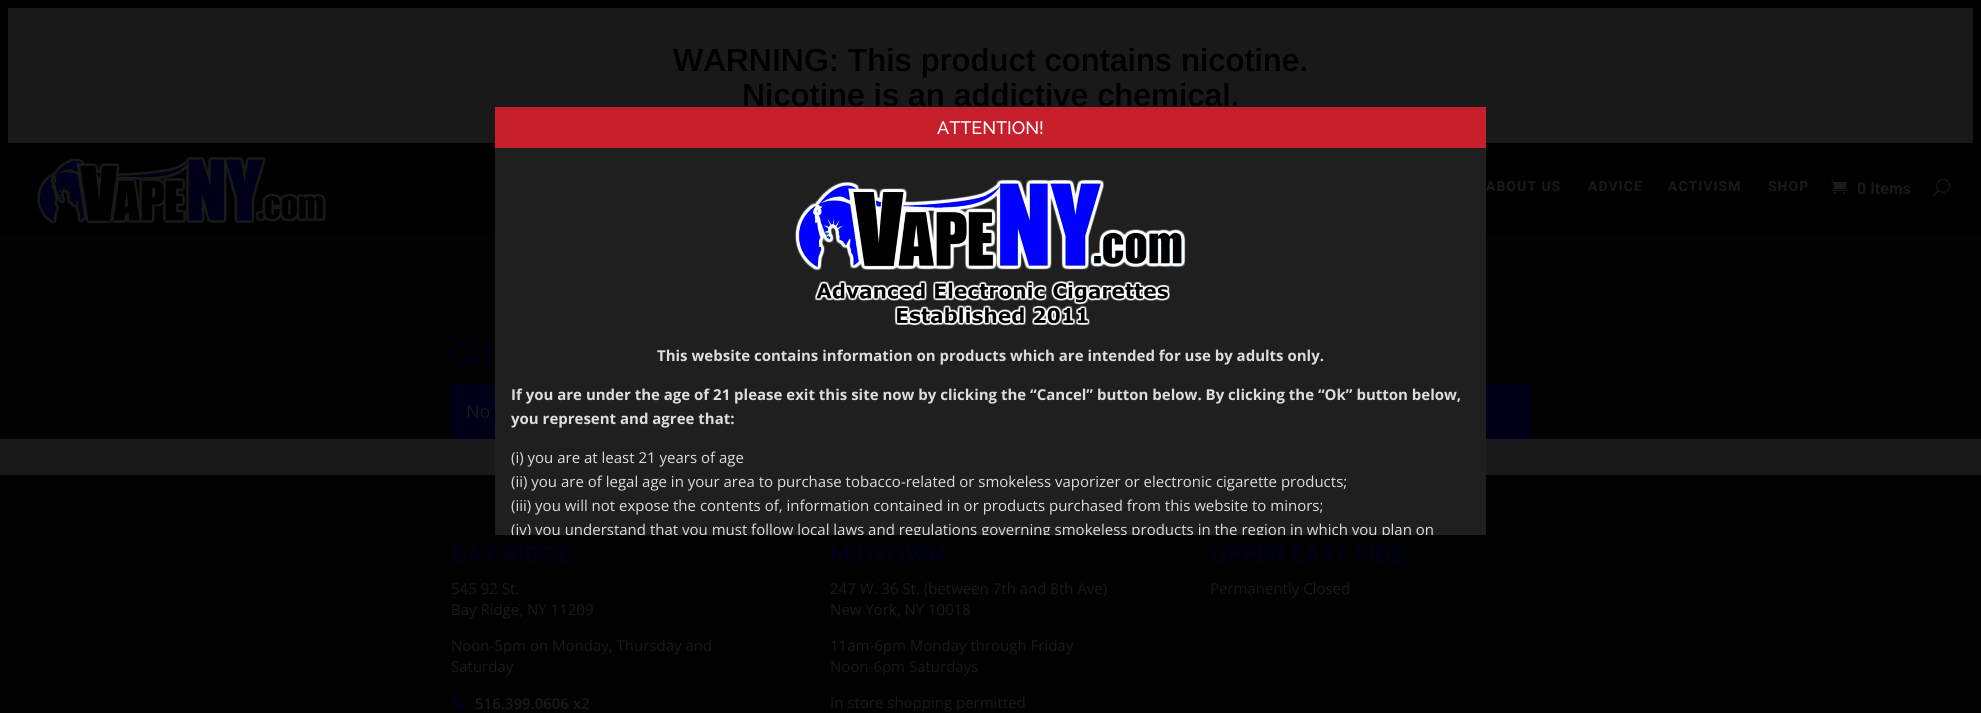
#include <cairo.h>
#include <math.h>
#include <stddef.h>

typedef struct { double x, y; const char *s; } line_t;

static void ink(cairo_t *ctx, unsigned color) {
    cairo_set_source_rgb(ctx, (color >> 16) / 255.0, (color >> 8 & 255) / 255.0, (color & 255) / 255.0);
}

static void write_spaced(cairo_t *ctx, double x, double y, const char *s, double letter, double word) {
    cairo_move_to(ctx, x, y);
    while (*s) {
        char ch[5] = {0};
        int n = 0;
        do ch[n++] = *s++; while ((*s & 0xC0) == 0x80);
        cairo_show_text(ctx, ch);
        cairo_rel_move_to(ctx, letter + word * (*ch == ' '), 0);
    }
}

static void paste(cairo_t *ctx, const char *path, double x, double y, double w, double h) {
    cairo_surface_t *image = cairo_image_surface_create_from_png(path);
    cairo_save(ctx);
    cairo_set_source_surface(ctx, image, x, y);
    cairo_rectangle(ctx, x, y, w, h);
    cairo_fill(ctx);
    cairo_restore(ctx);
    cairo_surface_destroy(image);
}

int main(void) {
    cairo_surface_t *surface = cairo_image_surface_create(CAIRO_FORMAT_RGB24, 1981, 713);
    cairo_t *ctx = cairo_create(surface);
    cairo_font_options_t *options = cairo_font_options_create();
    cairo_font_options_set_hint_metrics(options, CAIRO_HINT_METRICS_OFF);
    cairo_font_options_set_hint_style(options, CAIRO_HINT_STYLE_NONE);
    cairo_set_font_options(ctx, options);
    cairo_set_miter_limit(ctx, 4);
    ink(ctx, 0x191919);
    cairo_paint(ctx);
    cairo_rectangle(ctx, 4, 4, 1973, 143);
    ink(ctx, 0x000000);
    cairo_set_line_width(ctx, 8);
    cairo_stroke(ctx);
    cairo_select_font_face(ctx, "Arimo SemiBold", CAIRO_FONT_SLANT_NORMAL, CAIRO_FONT_WEIGHT_NORMAL);
    cairo_set_font_size(ctx, 32);
    cairo_move_to(ctx, 673, 71);
    cairo_show_text(ctx, "WARNING: This product contains nicotine.");
    cairo_move_to(ctx, 742, 106);
    cairo_show_text(ctx, "Nicotine is an addictive chemical.");
    cairo_rectangle(ctx, 0, 151, 1981, 86);
    cairo_fill(ctx);
    paste(ctx, "media/1.png", 37, 156, 289, 68);
    cairo_select_font_face(ctx, "Roboto", CAIRO_FONT_SLANT_NORMAL, CAIRO_FONT_WEIGHT_BOLD);
    cairo_set_font_size(ctx, 14);
    ink(ctx, 0x191919);
    {
        static const line_t items[] = {
            {1486, 191, "ABOUT US"},
            {1588, 191, "ADVICE"},
            {1668, 191, "ACTIVISM"},
            {1768, 191, "SHOP"},
        };
        for (size_t i = 0; i < sizeof items / sizeof *items; i++) {
            write_spaced(ctx, items[i].x, items[i].y, items[i].s, 1, 0);
        }
    }
    paste(ctx, "media/2.png", 1831, 180, 16, 14);
    cairo_set_font_size(ctx, 16);
    cairo_move_to(ctx, 1857, 194);
    cairo_show_text(ctx, "0 Items");
    paste(ctx, "media/3.png", 1933, 179, 17, 18);
    ink(ctx, 0x030303);
    cairo_rectangle(ctx, 0, 237, 1981, 202);
    cairo_fill(ctx);
    cairo_select_font_face(ctx, "Raleway Thin", CAIRO_FONT_SLANT_NORMAL, CAIRO_FONT_WEIGHT_NORMAL);
    cairo_set_font_size(ctx, 32);
    ink(ctx, 0x000019);
    cairo_move_to(ctx, 451, 365);
    cairo_show_text(ctx, "Gif");
    cairo_rectangle(ctx, 451, 384, 1080, 55);
    cairo_fill(ctx);
    cairo_select_font_face(ctx, "Open Sans", CAIRO_FONT_SLANT_NORMAL, CAIRO_FONT_WEIGHT_NORMAL);
    cairo_set_font_size(ctx, 18);
    ink(ctx, 0x191919);
    cairo_move_to(ctx, 466, 418);
    cairo_show_text(ctx, "No");
    ink(ctx, 0x010101);
    cairo_rectangle(ctx, 0, 475, 1981, 238);
    cairo_fill(ctx);
    cairo_select_font_face(ctx, "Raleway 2 Thin", CAIRO_FONT_SLANT_NORMAL, CAIRO_FONT_WEIGHT_NORMAL);
    cairo_set_font_size(ctx, 23);
    ink(ctx, 0x000019);
    cairo_move_to(ctx, 451, 562);
    cairo_show_text(ctx, "BAY RIDGE");
    cairo_select_font_face(ctx, "Open Sans", CAIRO_FONT_SLANT_NORMAL, CAIRO_FONT_WEIGHT_NORMAL);
    cairo_set_font_size(ctx, 15);
    ink(ctx, 0x191919);
    {
        static const line_t items[] = {
            {451, 594, "545 92 St."},
            {451, 615, "Bay Ridge, NY 11209"},
            {451, 651, "Noon-5pm on Monday, Thursday and"},
            {451, 672, "Saturday"},
        };
        for (size_t i = 0; i < sizeof items / sizeof *items; i++) {
            cairo_move_to(ctx, items[i].x, items[i].y);
            cairo_show_text(ctx, items[i].s);
        }
    }
    paste(ctx, "media/4.png", 451, 694, 16, 16);
    cairo_select_font_face(ctx, "Open Sans SemiBold", CAIRO_FONT_SLANT_NORMAL, CAIRO_FONT_WEIGHT_NORMAL);
    cairo_move_to(ctx, 475, 709);
    cairo_show_text(ctx, "516.399.0606 x2");
    cairo_select_font_face(ctx, "Raleway 2 Thin", CAIRO_FONT_SLANT_NORMAL, CAIRO_FONT_WEIGHT_NORMAL);
    cairo_set_font_size(ctx, 23);
    ink(ctx, 0x000019);
    cairo_move_to(ctx, 830, 562);
    cairo_show_text(ctx, "MIDTOWN");
    cairo_select_font_face(ctx, "Open Sans", CAIRO_FONT_SLANT_NORMAL, CAIRO_FONT_WEIGHT_NORMAL);
    cairo_set_font_size(ctx, 15);
    ink(ctx, 0x191919);
    {
        static const line_t items[] = {
            {830, 594, "247 W. 36 St. (between 7th and 8th Ave)"},
            {830, 615, "New York, NY 10018"},
            {830, 651, "11am-6pm Monday through Friday"},
            {830, 672, "Noon-6pm Saturdays"},
            {830, 708, "In store shopping permitted"},
        };
        for (size_t i = 0; i < sizeof items / sizeof *items; i++) {
            cairo_move_to(ctx, items[i].x, items[i].y);
            cairo_show_text(ctx, items[i].s);
        }
    }
    cairo_select_font_face(ctx, "Raleway 2 Thin", CAIRO_FONT_SLANT_NORMAL, CAIRO_FONT_WEIGHT_NORMAL);
    cairo_set_font_size(ctx, 23);
    ink(ctx, 0x000019);
    cairo_move_to(ctx, 1210, 562);
    cairo_show_text(ctx, "UPPER EAST SIDE");
    cairo_select_font_face(ctx, "Open Sans", CAIRO_FONT_SLANT_NORMAL, CAIRO_FONT_WEIGHT_NORMAL);
    cairo_set_font_size(ctx, 15);
    ink(ctx, 0x191919);
    cairo_move_to(ctx, 1210, 594);
    cairo_show_text(ctx, "Permanently Closed");
    ink(ctx, 0x1F1F1F);
    cairo_rectangle(ctx, 495, 148, 991, 387);
    cairo_fill(ctx);
    ink(ctx, 0xC81F2C);
    cairo_rectangle(ctx, 495, 107, 991, 41);
    cairo_fill(ctx);
    cairo_select_font_face(ctx, "Raleway Thin", CAIRO_FONT_SLANT_NORMAL, CAIRO_FONT_WEIGHT_NORMAL);
    cairo_set_font_size(ctx, 18);
    ink(ctx, 0xFFFFFF);
    cairo_move_to(ctx, 937, 134);
    cairo_show_text(ctx, "ATTENTION!");
    paste(ctx, "media/5.png", 795, 179, 391, 147);
    cairo_select_font_face(ctx, "Open Sans", CAIRO_FONT_SLANT_NORMAL, CAIRO_FONT_WEIGHT_BOLD);
    cairo_set_font_size(ctx, 15);
    ink(ctx, 0xDDDDDD);
    {
        static const line_t items[] = {
            {657, 361, "This website contains information on products which are intended for use by adults only."},
            {511, 400, "If you are under the age of 21 please exit this site now by clicking the “Cancel” button below. By clicking the “Ok” button below,"},
            {511, 424, "you represent and agree that:"},
        };
        for (size_t i = 0; i < sizeof items / sizeof *items; i++) {
            cairo_move_to(ctx, items[i].x, items[i].y);
            cairo_show_text(ctx, items[i].s);
        }
    }
    cairo_select_font_face(ctx, "Open Sans", CAIRO_FONT_SLANT_NORMAL, CAIRO_FONT_WEIGHT_NORMAL);
    {
        static const line_t items[] = {
            {511, 463, "(i) you are at least 21 years of age"},
            {511, 487, "(ii) you are of legal age in your area to purchase tobacco-related or smokeless vaporizer or electronic cigarette products;"},
            {511, 511, "(iii) you will not expose the contents of, information contained in or products purchased from this website to minors;"},
        };
        for (size_t i = 0; i < sizeof items / sizeof *items; i++) {
            cairo_move_to(ctx, items[i].x, items[i].y);
            cairo_show_text(ctx, items[i].s);
        }
    }
    cairo_save(ctx);
    cairo_rectangle(ctx, 495, 107, 991, 428);
    cairo_clip(ctx);
    cairo_move_to(ctx, 511, 535);
    cairo_show_text(ctx, "(iv) you understand that you must follow local laws and regulations governing smokeless products in the region in which you plan on");
    cairo_restore(ctx);
    cairo_surface_write_to_png(surface, "image.png");
    cairo_font_options_destroy(options);
    cairo_destroy(ctx);
    cairo_surface_destroy(surface);
    return 0;
}
